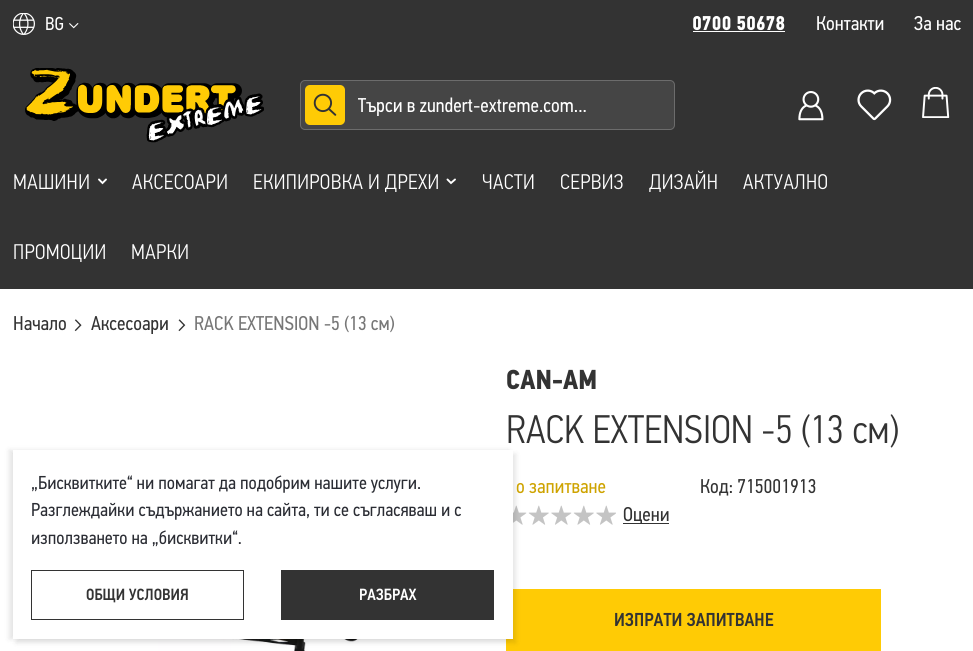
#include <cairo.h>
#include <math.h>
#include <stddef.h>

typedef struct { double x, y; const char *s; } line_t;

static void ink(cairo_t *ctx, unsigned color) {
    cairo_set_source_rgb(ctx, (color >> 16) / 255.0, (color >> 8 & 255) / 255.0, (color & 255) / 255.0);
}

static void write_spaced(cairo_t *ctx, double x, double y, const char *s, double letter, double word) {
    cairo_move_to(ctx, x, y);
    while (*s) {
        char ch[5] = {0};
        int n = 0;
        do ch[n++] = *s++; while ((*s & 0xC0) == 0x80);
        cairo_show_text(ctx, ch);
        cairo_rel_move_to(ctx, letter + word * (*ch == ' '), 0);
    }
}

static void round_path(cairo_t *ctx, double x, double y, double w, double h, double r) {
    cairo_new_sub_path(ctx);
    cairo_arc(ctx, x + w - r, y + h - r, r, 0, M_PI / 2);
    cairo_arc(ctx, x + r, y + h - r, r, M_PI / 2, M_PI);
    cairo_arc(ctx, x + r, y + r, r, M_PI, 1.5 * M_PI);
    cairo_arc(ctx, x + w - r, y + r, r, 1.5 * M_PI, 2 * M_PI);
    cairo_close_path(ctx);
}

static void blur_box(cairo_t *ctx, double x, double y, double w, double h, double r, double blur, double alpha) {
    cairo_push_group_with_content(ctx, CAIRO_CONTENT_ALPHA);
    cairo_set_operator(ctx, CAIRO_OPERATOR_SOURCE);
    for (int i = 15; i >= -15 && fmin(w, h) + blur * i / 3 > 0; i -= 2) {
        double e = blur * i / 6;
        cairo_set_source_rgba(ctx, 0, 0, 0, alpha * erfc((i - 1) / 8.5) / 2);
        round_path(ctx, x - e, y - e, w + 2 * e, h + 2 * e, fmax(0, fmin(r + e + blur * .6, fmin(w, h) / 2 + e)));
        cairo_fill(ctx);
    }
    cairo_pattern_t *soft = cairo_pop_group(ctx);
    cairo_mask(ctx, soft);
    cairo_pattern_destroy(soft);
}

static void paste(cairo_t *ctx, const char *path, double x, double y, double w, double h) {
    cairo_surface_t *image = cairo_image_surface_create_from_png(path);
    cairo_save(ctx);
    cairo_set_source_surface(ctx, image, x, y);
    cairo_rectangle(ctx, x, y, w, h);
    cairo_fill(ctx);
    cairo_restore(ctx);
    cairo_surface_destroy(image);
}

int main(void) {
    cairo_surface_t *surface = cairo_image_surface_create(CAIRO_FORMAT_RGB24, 973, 651);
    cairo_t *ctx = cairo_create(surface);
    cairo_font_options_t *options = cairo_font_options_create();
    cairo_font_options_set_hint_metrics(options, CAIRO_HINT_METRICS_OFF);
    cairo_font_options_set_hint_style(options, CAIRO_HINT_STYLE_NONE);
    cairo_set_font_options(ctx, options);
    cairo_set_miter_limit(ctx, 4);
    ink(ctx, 0xFFFFFF);
    cairo_paint(ctx);
    ink(ctx, 0x333333);
    cairo_rectangle(ctx, 0, 0, 973, 289);
    cairo_fill(ctx);
    paste(ctx, "media/1.png", 13, 13, 22, 22);
    cairo_select_font_face(ctx, "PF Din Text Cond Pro", CAIRO_FONT_SLANT_NORMAL, CAIRO_FONT_WEIGHT_NORMAL);
    cairo_set_font_size(ctx, 18.75);
    ink(ctx, 0xFFFFFF);
    cairo_move_to(ctx, 45, 30);
    cairo_show_text(ctx, "BG");
    paste(ctx, "media/2.png", 69, 23, 10, 6);
    cairo_select_font_face(ctx, "PF Din Text Cond Pro", CAIRO_FONT_SLANT_NORMAL, CAIRO_FONT_WEIGHT_BOLD);
    cairo_set_font_size(ctx, 20);
    cairo_move_to(ctx, 692, 30);
    cairo_show_text(ctx, "0700 50678");
    cairo_rectangle(ctx, 693, 31, 92, 1);
    cairo_fill(ctx);
    cairo_select_font_face(ctx, "PF Din Text Cond Pro", CAIRO_FONT_SLANT_NORMAL, CAIRO_FONT_WEIGHT_NORMAL);
    cairo_move_to(ctx, 816, 30);
    cairo_show_text(ctx, "Контакти");
    cairo_move_to(ctx, 914, 30);
    cairo_show_text(ctx, "За нас");
    paste(ctx, "media/3.png", 25, 68, 239, 75);
    ink(ctx, 0x454545);
    round_path(ctx, 300.5, 80.5, 374, 49, 4.5);
    cairo_fill_preserve(ctx);
    ink(ctx, 0x6C6C6C);
    cairo_set_line_width(ctx, 1);
    cairo_stroke(ctx);
    ink(ctx, 0xFFCB05);
    round_path(ctx, 305, 85, 40, 40, 5);
    cairo_fill(ctx);
    paste(ctx, "media/4.png", 313, 93, 24, 23);
    ink(ctx, 0xFFFFFF);
    cairo_move_to(ctx, 358, 112);
    cairo_show_text(ctx, "Търси в zundert-extreme.com...");
    paste(ctx, "media/5.png", 798, 91, 26, 30);
    paste(ctx, "media/6.png", 857, 89, 35, 32);
    paste(ctx, "media/7.png", 922, 87, 28, 31);
    cairo_select_font_face(ctx, "PF Din Text Cond Pro Light", CAIRO_FONT_SLANT_NORMAL, CAIRO_FONT_WEIGHT_NORMAL);
    cairo_set_font_size(ctx, 21.25);
    write_spaced(ctx, 13, 189, "МАШИНИ", 0.4, 0);
    cairo_new_path(ctx);
    cairo_move_to(ctx, 99, 179.5);
    cairo_line_to(ctx, 102.5, 183);
    cairo_line_to(ctx, 106, 179.5);
    cairo_set_line_width(ctx, 1.9);
    cairo_set_line_cap(ctx, CAIRO_LINE_CAP_ROUND);
    cairo_stroke(ctx);
    write_spaced(ctx, 132, 189, "АКСЕСОАРИ", 0.4, 0);
    write_spaced(ctx, 253, 189, "ЕКИПИРОВКА И ДРЕХИ", 0.4, 0);
    cairo_new_path(ctx);
    cairo_move_to(ctx, 447.5, 179.5);
    cairo_line_to(ctx, 451, 183);
    cairo_line_to(ctx, 455, 179.5);
    cairo_stroke(ctx);
    {
        static const line_t items[] = {
            {482, 189, "ЧАСТИ"},
            {560, 189, "СЕРВИЗ"},
            {649, 189, "ДИЗАЙН"},
            {743, 189, "АКТУАЛНО"},
            {13, 259, "ПРОМОЦИИ"},
            {131, 259, "МАРКИ"},
        };
        for (size_t i = 0; i < sizeof items / sizeof *items; i++) {
            write_spaced(ctx, items[i].x, items[i].y, items[i].s, 0.4, 0);
        }
    }
    cairo_select_font_face(ctx, "PF Din Text Cond Pro", CAIRO_FONT_SLANT_NORMAL, CAIRO_FONT_WEIGHT_NORMAL);
    cairo_set_font_size(ctx, 20);
    ink(ctx, 0x333333);
    cairo_move_to(ctx, 13, 330);
    cairo_show_text(ctx, "Начало");
    paste(ctx, "media/8.png", 74, 319, 8, 13);
    cairo_move_to(ctx, 91, 330);
    cairo_show_text(ctx, "Аксесоари");
    paste(ctx, "media/9.png", 178, 319, 8, 13);
    ink(ctx, 0x777777);
    cairo_move_to(ctx, 194, 330);
    cairo_show_text(ctx, "RACK EXTENSION -5 (13 см)");
    paste(ctx, "media/10.png", 513, 505, 103, 20);
    ink(ctx, 0xFFCB05);
    cairo_rectangle(ctx, 506, 589, 375, 62);
    cairo_fill(ctx);
    paste(ctx, "media/11.png", 81, 639, 319, 12);
    ink(ctx, 0x000000);
    blur_box(ctx, 9, 450, 500, 189, 0, 2.5, 0.1);
    blur_box(ctx, 16, 454, 500, 189, 0, 2.5, 0.1);
    ink(ctx, 0xFFFFFF);
    cairo_rectangle(ctx, 13, 450, 500, 189);
    cairo_fill(ctx);
    cairo_set_font_size(ctx, 18.75);
    ink(ctx, 0x2B2D34);
    {
        static const line_t items[] = {
            {31, 489, "„Бисквитките“ ни помагат да подобрим нашите услуги."},
            {31, 516, "Разглеждайки съдържанието на сайта, ти се съгласяваш и с"},
            {31, 544, "използването на „бисквитки“."},
        };
        for (size_t i = 0; i < sizeof items / sizeof *items; i++) {
            cairo_move_to(ctx, items[i].x, items[i].y);
            cairo_show_text(ctx, items[i].s);
        }
    }
    cairo_rectangle(ctx, 31.5, 570.5, 212, 49);
    ink(ctx, 0x333333);
    cairo_set_line_width(ctx, 1);
    cairo_set_line_cap(ctx, CAIRO_LINE_CAP_BUTT);
    cairo_stroke(ctx);
    cairo_select_font_face(ctx, "PF Din Text Cond Pro Medium", CAIRO_FONT_SLANT_NORMAL, CAIRO_FONT_WEIGHT_NORMAL);
    cairo_set_font_size(ctx, 16.25);
    cairo_move_to(ctx, 86, 600);
    cairo_show_text(ctx, "ОБЩИ УСЛОВИЯ");
    cairo_rectangle(ctx, 281, 570, 213, 50);
    cairo_fill(ctx);
    ink(ctx, 0xFFFFFF);
    cairo_move_to(ctx, 359, 600);
    cairo_show_text(ctx, "РАЗБРАХ");
    cairo_select_font_face(ctx, "PF Din Text Cond Pro", CAIRO_FONT_SLANT_NORMAL, CAIRO_FONT_WEIGHT_BOLD);
    cairo_set_font_size(ctx, 27.5);
    ink(ctx, 0x333333);
    cairo_move_to(ctx, 506, 389);
    cairo_show_text(ctx, "CAN-AM");
    cairo_select_font_face(ctx, "PF Din Text Cond Pro Light", CAIRO_FONT_SLANT_NORMAL, CAIRO_FONT_WEIGHT_NORMAL);
    cairo_set_font_size(ctx, 40);
    cairo_move_to(ctx, 506, 443);
    cairo_show_text(ctx, "RACK EXTENSION -5 (13 см)");
    cairo_select_font_face(ctx, "PF Din Text Cond Pro", CAIRO_FONT_SLANT_NORMAL, CAIRO_FONT_WEIGHT_NORMAL);
    cairo_set_font_size(ctx, 20);
    ink(ctx, 0xCEA300);
    cairo_move_to(ctx, 516, 493);
    cairo_show_text(ctx, "о запитване");
    ink(ctx, 0x333333);
    cairo_move_to(ctx, 700, 493);
    cairo_show_text(ctx, "Код: 715001913");
    cairo_rectangle(ctx, 623, 523, 46, 1);
    cairo_fill(ctx);
    cairo_move_to(ctx, 623, 521);
    cairo_show_text(ctx, "Оцени");
    cairo_select_font_face(ctx, "PF Din Text Cond Pro Medium", CAIRO_FONT_SLANT_NORMAL, CAIRO_FONT_WEIGHT_NORMAL);
    cairo_set_font_size(ctx, 18.75);
    cairo_move_to(ctx, 614, 626);
    cairo_show_text(ctx, "ИЗПРАТИ ЗАПИТВАНЕ");
    cairo_surface_write_to_png(surface, "image.png");
    cairo_font_options_destroy(options);
    cairo_destroy(ctx);
    cairo_surface_destroy(surface);
    return 0;
}
